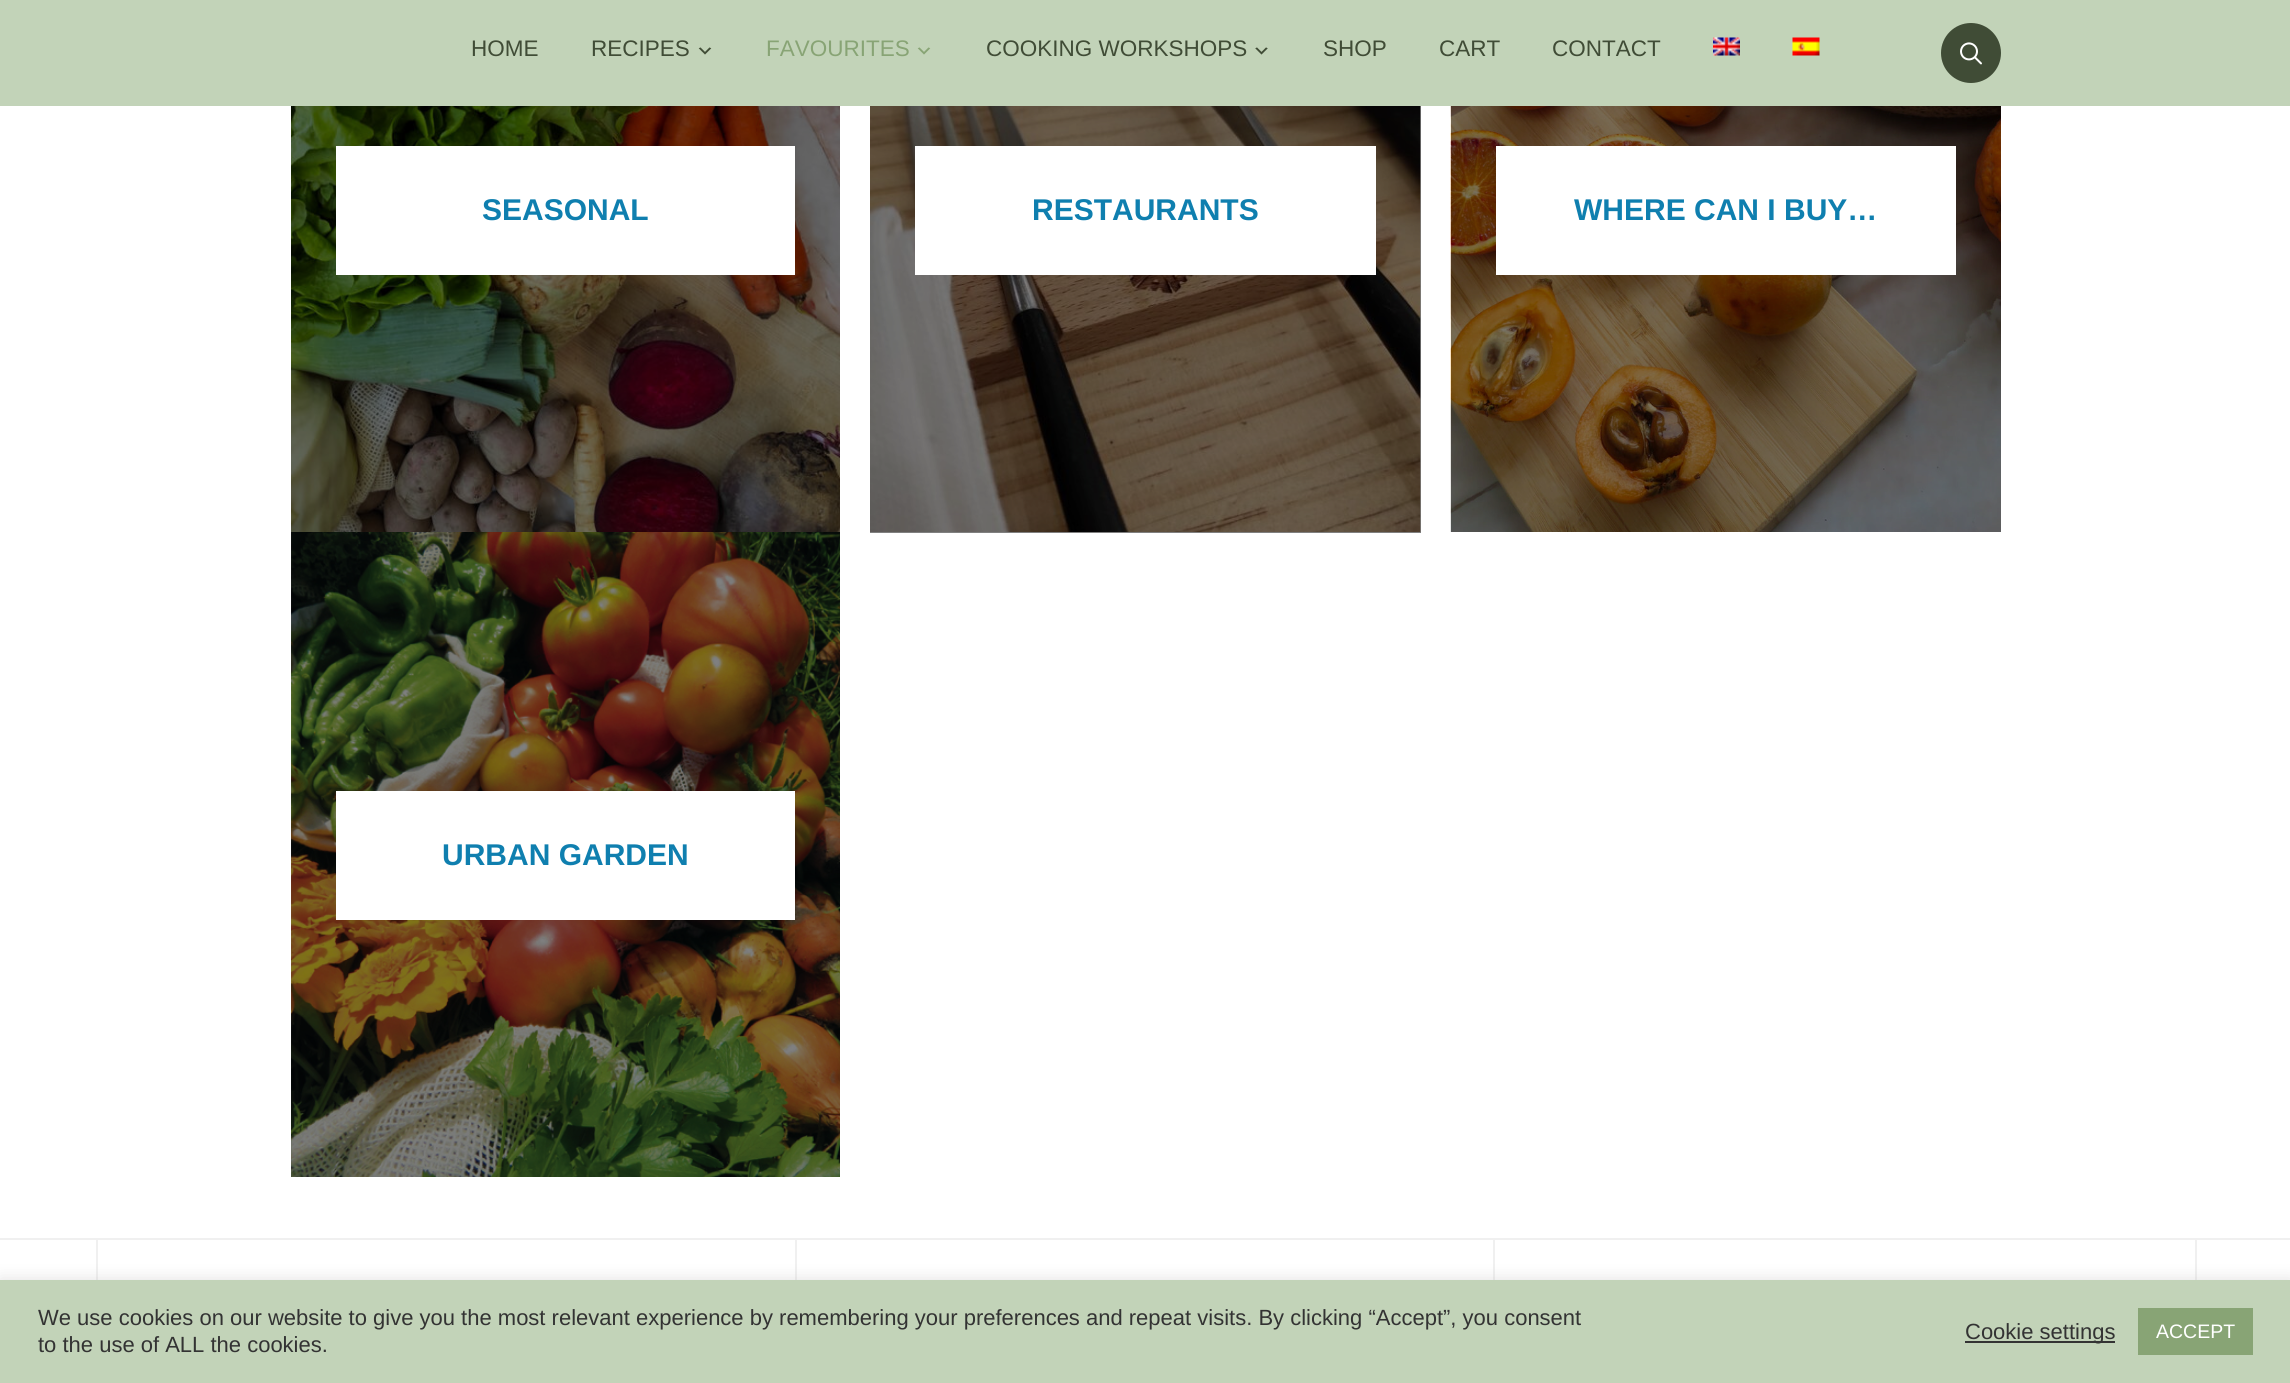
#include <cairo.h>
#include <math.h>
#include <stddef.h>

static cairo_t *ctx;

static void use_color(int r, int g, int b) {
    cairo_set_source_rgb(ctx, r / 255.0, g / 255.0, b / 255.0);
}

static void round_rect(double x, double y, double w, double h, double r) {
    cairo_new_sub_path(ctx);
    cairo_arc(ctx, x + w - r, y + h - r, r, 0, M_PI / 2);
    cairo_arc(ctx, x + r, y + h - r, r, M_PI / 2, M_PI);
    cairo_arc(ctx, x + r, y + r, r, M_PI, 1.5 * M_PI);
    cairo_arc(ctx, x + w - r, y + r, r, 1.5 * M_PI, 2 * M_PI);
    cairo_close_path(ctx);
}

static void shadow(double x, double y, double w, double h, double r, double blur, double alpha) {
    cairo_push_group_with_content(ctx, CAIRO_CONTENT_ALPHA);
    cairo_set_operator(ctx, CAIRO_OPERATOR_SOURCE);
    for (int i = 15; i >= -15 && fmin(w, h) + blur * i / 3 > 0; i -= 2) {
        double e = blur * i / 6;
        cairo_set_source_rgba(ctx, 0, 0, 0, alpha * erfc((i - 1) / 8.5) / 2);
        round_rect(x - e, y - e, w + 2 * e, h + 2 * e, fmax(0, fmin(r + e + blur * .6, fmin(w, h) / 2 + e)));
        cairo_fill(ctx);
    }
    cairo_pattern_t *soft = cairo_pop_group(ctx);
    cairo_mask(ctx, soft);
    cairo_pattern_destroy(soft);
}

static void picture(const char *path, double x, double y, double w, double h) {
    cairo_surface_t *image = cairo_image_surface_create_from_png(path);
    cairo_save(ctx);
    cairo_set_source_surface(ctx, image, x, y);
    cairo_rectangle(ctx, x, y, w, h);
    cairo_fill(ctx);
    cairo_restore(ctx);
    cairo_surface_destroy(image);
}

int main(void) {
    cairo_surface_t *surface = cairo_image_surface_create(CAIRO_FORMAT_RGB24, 2290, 1383);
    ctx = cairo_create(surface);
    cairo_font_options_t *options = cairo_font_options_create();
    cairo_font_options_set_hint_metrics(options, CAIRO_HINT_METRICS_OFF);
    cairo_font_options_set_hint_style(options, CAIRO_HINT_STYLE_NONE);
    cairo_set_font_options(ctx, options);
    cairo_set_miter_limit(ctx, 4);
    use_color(255, 255, 255);
    cairo_paint(ctx);
    use_color(128, 128, 128);
    cairo_rectangle(ctx, 870, 106, 551, 427);
    cairo_fill(ctx);
    use_color(194, 211, 184);
    cairo_rectangle(ctx, 0, 0, 2290, 106);
    cairo_fill(ctx);
    cairo_select_font_face(ctx, "Liberation Sans", CAIRO_FONT_SLANT_NORMAL, CAIRO_FONT_WEIGHT_NORMAL);
    cairo_set_font_size(ctx, 22.5);
    use_color(64, 76, 54);
    cairo_move_to(ctx, 471, 56);
    cairo_show_text(ctx, "HOME");
    cairo_move_to(ctx, 591, 56);
    cairo_show_text(ctx, "RECIPES");
    picture("img1.png", 698, 47, 14, 8);
    use_color(136, 164, 117);
    cairo_move_to(ctx, 766, 56);
    cairo_show_text(ctx, "FAVOURITES");
    picture("img2.png", 917, 47, 14, 8);
    use_color(64, 76, 54);
    cairo_move_to(ctx, 986, 56);
    cairo_show_text(ctx, "COOKING WORKSHOPS");
    picture("img3.png", 1255, 47, 13, 8);
    cairo_move_to(ctx, 1323, 56);
    cairo_show_text(ctx, "SHOP");
    cairo_move_to(ctx, 1439, 56);
    cairo_show_text(ctx, "CART");
    cairo_move_to(ctx, 1552, 56);
    cairo_show_text(ctx, "CONTACT");
    picture("img4.png", 1713, 37, 27, 19);
    picture("img5.png", 1792, 37, 28, 19);
    cairo_arc(ctx, 1971, 53, 30, 0, 2 * M_PI);
    cairo_fill(ctx);
    picture("img6.png", 1960, 42, 22, 23);
    picture("img7.png", 291, 106, 549, 426);
    picture("img10.png", 291, 532, 549, 645);
    cairo_set_source_rgba(ctx, 0, 0, 0, 0.5);
    cairo_rectangle(ctx, 291, 106, 549, 427);
    cairo_fill(ctx);
    use_color(255, 255, 255);
    cairo_rectangle(ctx, 336, 146, 459, 129);
    cairo_fill(ctx);
    cairo_select_font_face(ctx, "Liberation Sans", CAIRO_FONT_SLANT_NORMAL, CAIRO_FONT_WEIGHT_BOLD);
    cairo_set_font_size(ctx, 30);
    use_color(15, 127, 175);
    cairo_move_to(ctx, 482, 220);
    cairo_show_text(ctx, "SEASONAL");
    picture("img8.png", 870, 106, 551, 426);
    use_color(255, 255, 255);
    cairo_rectangle(ctx, 915, 146, 461, 129);
    cairo_fill(ctx);
    use_color(15, 127, 175);
    cairo_move_to(ctx, 1032, 220);
    cairo_show_text(ctx, "RESTAURANTS");
    picture("img9.png", 1450, 106, 551, 426);
    use_color(255, 255, 255);
    cairo_rectangle(ctx, 1496, 146, 460, 129);
    cairo_fill(ctx);
    use_color(15, 127, 175);
    cairo_move_to(ctx, 1574, 220);
    cairo_show_text(ctx, "WHERE CAN I BUY…");
    use_color(255, 255, 255);
    cairo_rectangle(ctx, 336, 791, 459, 129);
    cairo_fill(ctx);
    use_color(15, 127, 175);
    cairo_move_to(ctx, 442, 865);
    cairo_show_text(ctx, "URBAN GARDEN");
    use_color(240, 240, 240);
    cairo_rectangle(ctx, 0, 1238, 2290, 2);
    cairo_fill(ctx);
    cairo_rectangle(ctx, 2195, 1239, 2, 41);
    cairo_fill(ctx);
    cairo_rectangle(ctx, 96, 1239, 2, 41);
    cairo_fill(ctx);
    cairo_rectangle(ctx, 795, 1239, 2, 41);
    cairo_fill(ctx);
    cairo_rectangle(ctx, 1493, 1239, 2, 41);
    cairo_fill(ctx);
    use_color(172, 171, 171);
    shadow(0, 1278, 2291, 104, 0, 7.5, 0.3);
    use_color(194, 211, 184);
    cairo_rectangle(ctx, 0, 1280, 2290, 103);
    cairo_fill(ctx);
    cairo_select_font_face(ctx, "Liberation Sans", CAIRO_FONT_SLANT_NORMAL, CAIRO_FONT_WEIGHT_NORMAL);
    cairo_set_font_size(ctx, 22);
    use_color(51, 51, 51);
    cairo_move_to(ctx, 38, 1325);
    cairo_show_text(ctx, "We use cookies on our website to give you the most relevant experience by remembering your preferences and repeat visits. By clicking “Accept”, you consent");
    cairo_move_to(ctx, 38, 1352);
    cairo_show_text(ctx, "to the use of ALL the cookies.");
    cairo_rectangle(ctx, 1965, 1341, 150, 2);
    cairo_fill(ctx);
    cairo_move_to(ctx, 1965, 1339);
    cairo_show_text(ctx, "Cookie settings");
    use_color(136, 164, 117);
    cairo_rectangle(ctx, 2138, 1308, 115, 47);
    cairo_fill(ctx);
    cairo_set_font_size(ctx, 19.5);
    use_color(255, 255, 255);
    cairo_move_to(ctx, 2156, 1338);
    cairo_show_text(ctx, "ACCEPT");
    cairo_surface_write_to_png(surface, "result.png");
    cairo_font_options_destroy(options);
    cairo_destroy(ctx);
    cairo_surface_destroy(surface);
    return 0;
}
